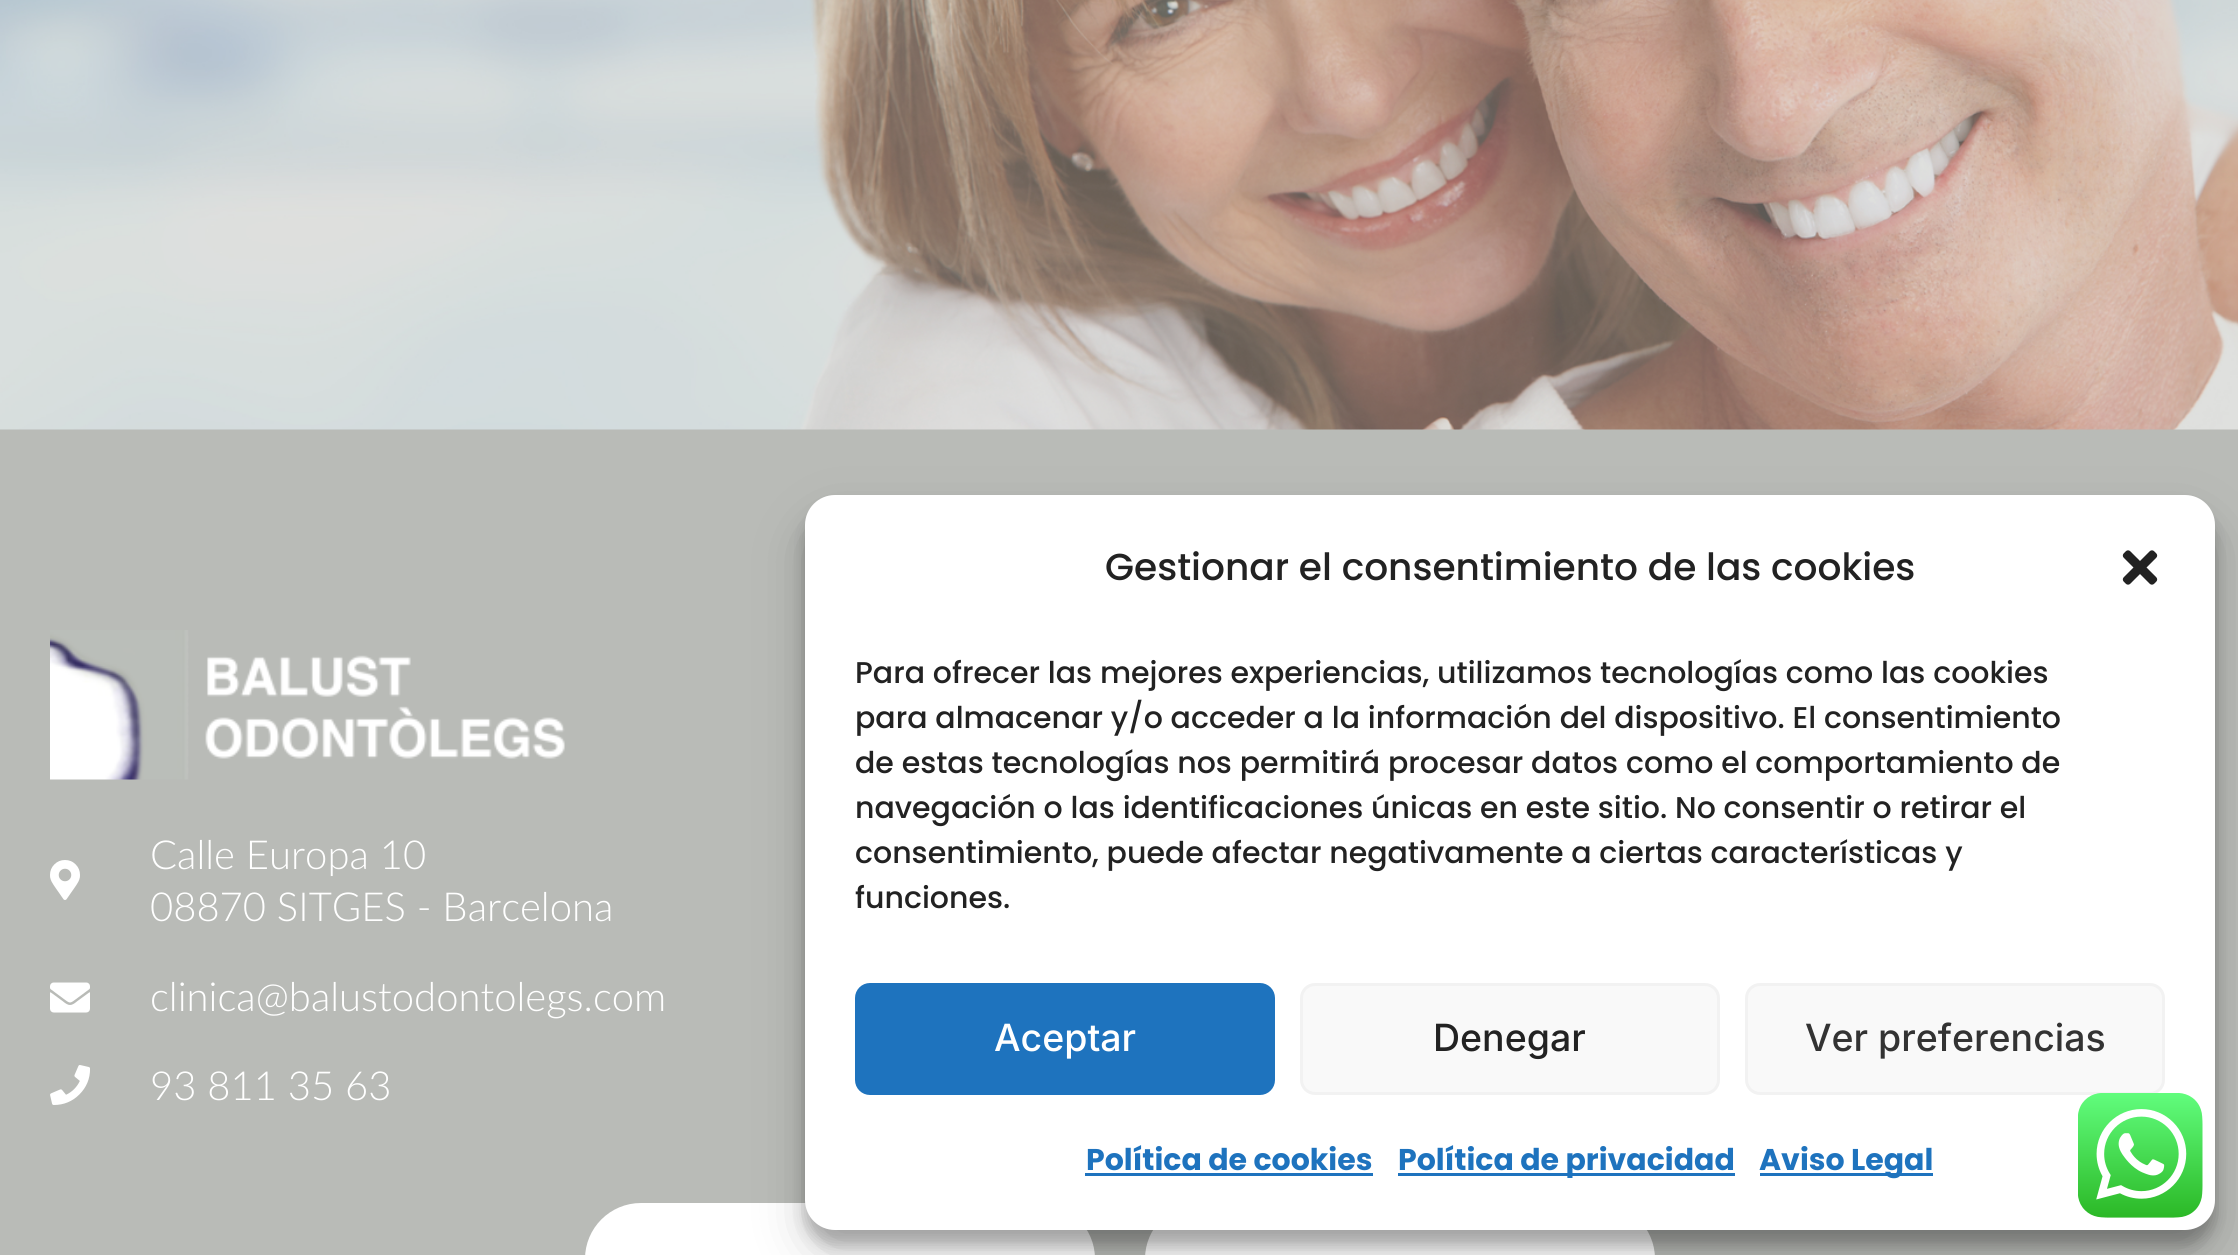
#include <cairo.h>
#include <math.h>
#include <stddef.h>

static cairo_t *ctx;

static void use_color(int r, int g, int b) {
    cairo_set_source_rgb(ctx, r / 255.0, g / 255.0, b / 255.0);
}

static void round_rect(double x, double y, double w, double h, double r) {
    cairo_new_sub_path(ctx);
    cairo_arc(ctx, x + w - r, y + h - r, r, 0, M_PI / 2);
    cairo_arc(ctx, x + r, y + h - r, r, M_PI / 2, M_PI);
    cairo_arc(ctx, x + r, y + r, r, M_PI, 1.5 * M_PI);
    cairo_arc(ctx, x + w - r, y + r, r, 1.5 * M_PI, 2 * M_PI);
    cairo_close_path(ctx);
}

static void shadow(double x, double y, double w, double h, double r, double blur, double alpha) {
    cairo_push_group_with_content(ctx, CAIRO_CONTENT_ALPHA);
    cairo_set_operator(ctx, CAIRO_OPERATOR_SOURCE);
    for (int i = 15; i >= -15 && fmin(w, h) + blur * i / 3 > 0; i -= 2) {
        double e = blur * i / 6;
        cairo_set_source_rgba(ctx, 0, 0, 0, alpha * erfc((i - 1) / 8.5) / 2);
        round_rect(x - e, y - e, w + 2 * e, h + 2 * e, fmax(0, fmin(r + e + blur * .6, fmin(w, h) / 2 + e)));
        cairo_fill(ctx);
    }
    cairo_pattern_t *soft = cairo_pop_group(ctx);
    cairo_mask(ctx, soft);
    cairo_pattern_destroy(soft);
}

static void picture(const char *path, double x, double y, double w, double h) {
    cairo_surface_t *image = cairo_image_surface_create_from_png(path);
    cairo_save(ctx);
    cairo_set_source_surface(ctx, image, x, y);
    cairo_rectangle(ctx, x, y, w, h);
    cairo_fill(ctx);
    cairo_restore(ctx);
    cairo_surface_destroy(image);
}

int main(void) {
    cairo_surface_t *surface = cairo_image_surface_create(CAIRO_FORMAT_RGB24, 2238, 1255);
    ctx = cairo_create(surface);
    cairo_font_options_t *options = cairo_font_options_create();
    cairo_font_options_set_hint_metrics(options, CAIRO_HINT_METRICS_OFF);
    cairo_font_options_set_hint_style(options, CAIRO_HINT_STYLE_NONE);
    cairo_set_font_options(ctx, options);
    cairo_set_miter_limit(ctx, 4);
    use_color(185, 187, 183);
    cairo_paint(ctx);
    picture("img1.png", 0, 0, 2238, 430);
    picture("img2.png", 50, 630, 515, 150);
    picture("img3.png", 50, 860, 30, 40);
    cairo_select_font_face(ctx, "Lato Light", CAIRO_FONT_SLANT_NORMAL, CAIRO_FONT_WEIGHT_NORMAL);
    cairo_set_font_size(ctx, 40);
    use_color(255, 255, 255);
    cairo_move_to(ctx, 150, 869);
    cairo_show_text(ctx, "Calle Europa 10");
    cairo_move_to(ctx, 150, 921);
    cairo_show_text(ctx, "08870 SITGES - Barcelona");
    picture("img4.png", 50, 982, 40, 31);
    cairo_move_to(ctx, 150, 1011);
    cairo_show_text(ctx, "clinica@balustodontolegs.com");
    picture("img5.png", 50, 1065, 40, 40);
    cairo_move_to(ctx, 150, 1100);
    cairo_show_text(ctx, "93 811 35 63");
    round_rect(585, 1203, 510, 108, 56);
    cairo_fill(ctx);
    round_rect(1145, 1203, 510, 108, 56);
    cairo_fill(ctx);
    use_color(0, 0, 0);
    shadow(805, 510, 1410, 735, 30, 7.5, 0.23);
    shadow(805, 520, 1410, 735, 30, 25, 0.19);
    use_color(255, 255, 255);
    round_rect(805, 495, 1410, 735, 30);
    cairo_fill(ctx);
    cairo_select_font_face(ctx, "Poppins Medium", CAIRO_FONT_SLANT_NORMAL, CAIRO_FONT_WEIGHT_NORMAL);
    cairo_set_font_size(ctx, 37.5);
    use_color(34, 34, 34);
    cairo_move_to(ctx, 1105, 580);
    cairo_show_text(ctx, "Gestionar el consentimiento de las cookies");
    picture("img6.png", 2122, 550, 36, 35);
    cairo_set_font_size(ctx, 30);
    cairo_move_to(ctx, 855, 683);
    cairo_show_text(ctx, "Para ofrecer las mejores experiencias, utilizamos tecnologías como las cookies");
    cairo_move_to(ctx, 855, 728);
    cairo_show_text(ctx, "para almacenar y/o acceder a la información del dispositivo. El consentimiento");
    cairo_move_to(ctx, 855, 773);
    cairo_show_text(ctx, "de estas tecnologías nos permitirá procesar datos como el comportamiento de");
    cairo_move_to(ctx, 855, 818);
    cairo_show_text(ctx, "navegación o las identificaciones únicas en este sitio. No consentir o retirar el");
    cairo_move_to(ctx, 855, 863);
    cairo_show_text(ctx, "consentimiento, puede afectar negativamente a ciertas características y");
    cairo_move_to(ctx, 855, 908);
    cairo_show_text(ctx, "funciones.");
    use_color(30, 115, 190);
    round_rect(856.5, 984.5, 417, 109, 13.5);
    cairo_fill_preserve(ctx);
    cairo_set_line_width(ctx, 3);
    cairo_stroke(ctx);
    cairo_select_font_face(ctx, "Inter Medium", CAIRO_FONT_SLANT_NORMAL, CAIRO_FONT_WEIGHT_NORMAL);
    cairo_set_font_size(ctx, 37.5);
    use_color(255, 255, 255);
    cairo_move_to(ctx, 994, 1051);
    cairo_show_text(ctx, "Aceptar");
    use_color(249, 249, 249);
    round_rect(1301.5, 984.5, 417, 109, 13.5);
    cairo_fill_preserve(ctx);
    use_color(242, 242, 242);
    cairo_stroke(ctx);
    use_color(34, 34, 34);
    cairo_move_to(ctx, 1433, 1051);
    cairo_show_text(ctx, "Denegar");
    use_color(249, 249, 249);
    round_rect(1746.5, 984.5, 417, 109, 13.5);
    cairo_fill_preserve(ctx);
    use_color(242, 242, 242);
    cairo_stroke(ctx);
    use_color(51, 51, 51);
    cairo_move_to(ctx, 1805, 1051);
    cairo_show_text(ctx, "Ver preferencias");
    cairo_select_font_face(ctx, "Poppins", CAIRO_FONT_SLANT_NORMAL, CAIRO_FONT_WEIGHT_BOLD);
    cairo_set_font_size(ctx, 30);
    use_color(30, 115, 190);
    cairo_move_to(ctx, 1086, 1170);
    cairo_show_text(ctx, "Política de cookies");
    cairo_rectangle(ctx, 1085, 1173, 288, 3);
    cairo_fill(ctx);
    cairo_rectangle(ctx, 1398, 1173, 337, 3);
    cairo_fill(ctx);
    cairo_move_to(ctx, 1398, 1170);
    cairo_show_text(ctx, "Política de privacidad");
    cairo_rectangle(ctx, 1760, 1173, 173, 3);
    cairo_fill(ctx);
    cairo_move_to(ctx, 1759, 1170);
    cairo_show_text(ctx, "Aviso Legal");
    picture("img7.png", 2078, 1093, 125, 125);
    cairo_surface_write_to_png(surface, "result.png");
    cairo_font_options_destroy(options);
    cairo_destroy(ctx);
    cairo_surface_destroy(surface);
    return 0;
}
